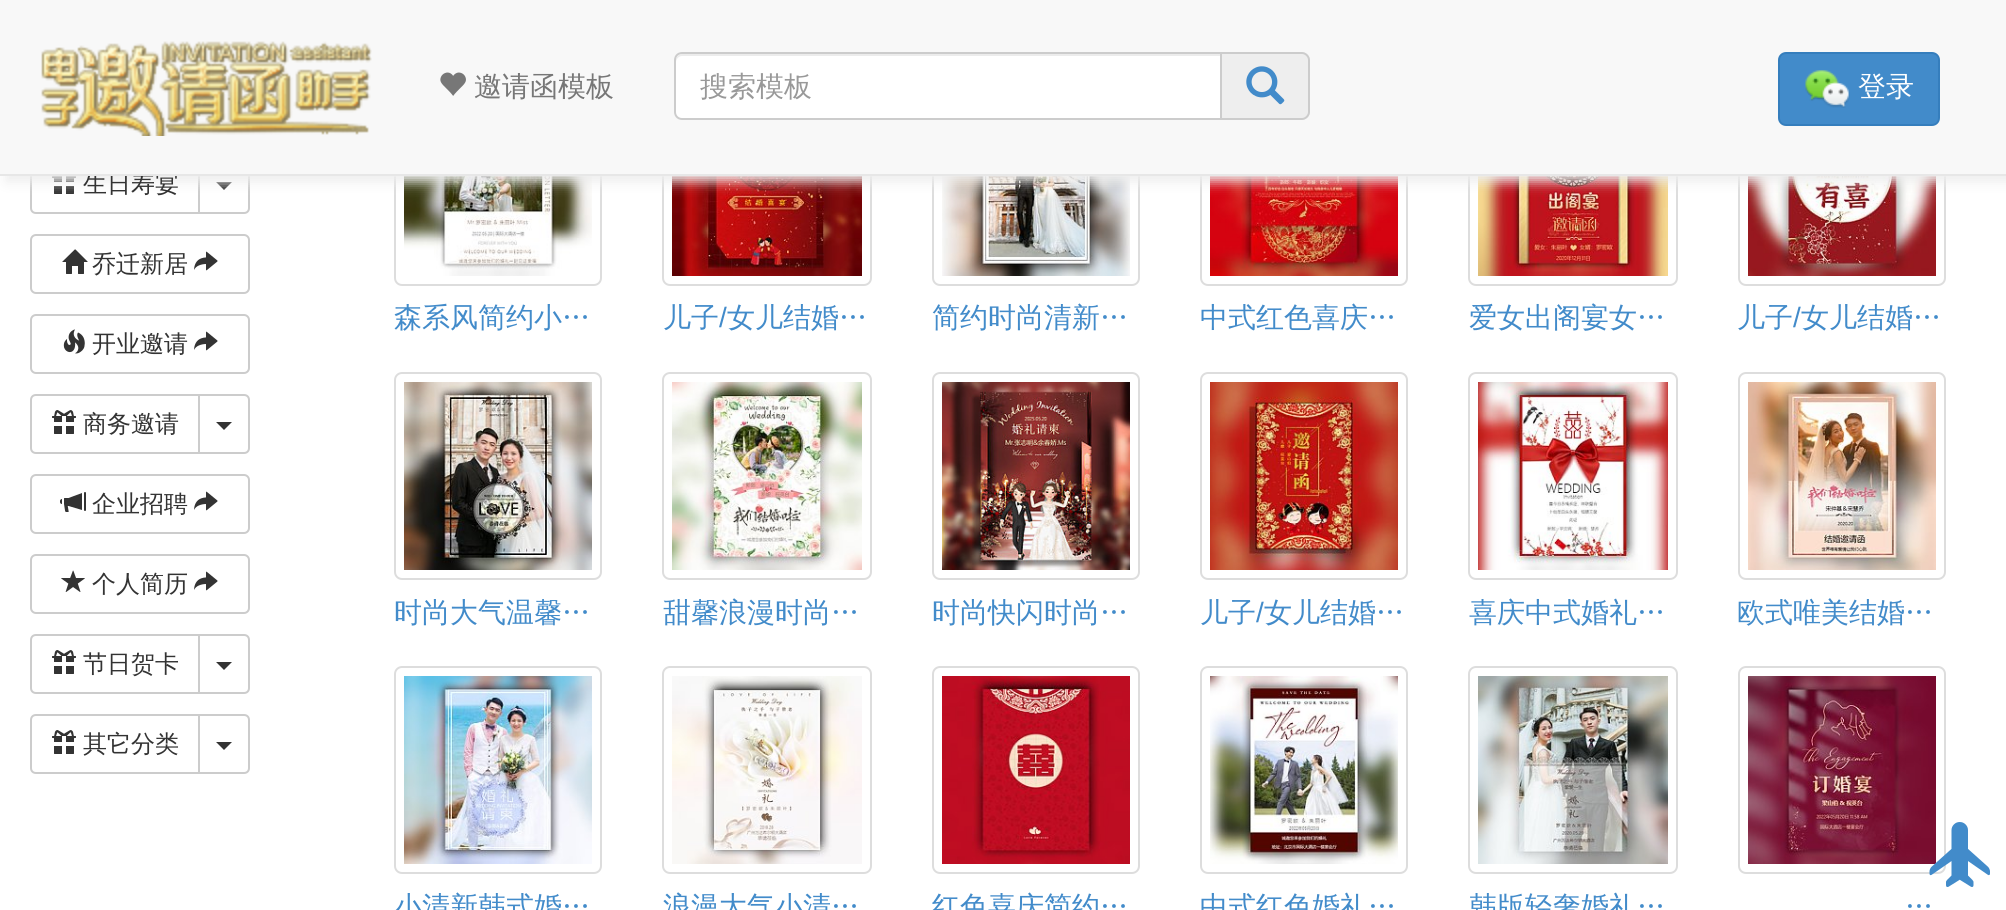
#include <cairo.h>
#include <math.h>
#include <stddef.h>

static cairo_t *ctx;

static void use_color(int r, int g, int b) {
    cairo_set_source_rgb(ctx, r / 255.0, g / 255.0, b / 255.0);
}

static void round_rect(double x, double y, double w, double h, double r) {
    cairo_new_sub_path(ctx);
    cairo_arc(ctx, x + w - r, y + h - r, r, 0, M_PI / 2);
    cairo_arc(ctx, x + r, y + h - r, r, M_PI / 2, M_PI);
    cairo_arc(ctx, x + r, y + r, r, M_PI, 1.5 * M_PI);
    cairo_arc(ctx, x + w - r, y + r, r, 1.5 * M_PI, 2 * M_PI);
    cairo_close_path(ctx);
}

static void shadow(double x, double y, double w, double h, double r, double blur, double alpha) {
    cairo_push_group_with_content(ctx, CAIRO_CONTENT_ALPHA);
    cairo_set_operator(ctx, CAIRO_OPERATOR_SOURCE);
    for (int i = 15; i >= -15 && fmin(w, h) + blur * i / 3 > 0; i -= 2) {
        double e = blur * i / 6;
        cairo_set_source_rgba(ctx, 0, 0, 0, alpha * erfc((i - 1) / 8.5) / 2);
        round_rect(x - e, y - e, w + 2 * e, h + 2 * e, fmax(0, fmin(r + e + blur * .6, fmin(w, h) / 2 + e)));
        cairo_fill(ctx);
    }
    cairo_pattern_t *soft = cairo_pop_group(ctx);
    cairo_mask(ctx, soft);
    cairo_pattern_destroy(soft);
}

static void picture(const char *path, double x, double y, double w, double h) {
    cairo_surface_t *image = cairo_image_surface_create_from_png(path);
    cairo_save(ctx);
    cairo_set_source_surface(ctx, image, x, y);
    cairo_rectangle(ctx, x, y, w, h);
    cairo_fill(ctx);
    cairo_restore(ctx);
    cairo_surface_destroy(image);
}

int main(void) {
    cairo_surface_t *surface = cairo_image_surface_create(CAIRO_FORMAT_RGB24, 2006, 910);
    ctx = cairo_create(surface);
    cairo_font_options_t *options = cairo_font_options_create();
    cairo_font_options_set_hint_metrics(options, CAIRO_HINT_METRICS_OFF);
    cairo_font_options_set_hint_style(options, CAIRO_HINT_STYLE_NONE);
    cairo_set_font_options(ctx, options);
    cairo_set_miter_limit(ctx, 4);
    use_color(255, 255, 255);
    cairo_paint(ctx);
    cairo_new_path(ctx);
    cairo_move_to(ctx, 36, 155);
    cairo_line_to(ctx, 199, 155);
    cairo_line_to(ctx, 199, 213);
    cairo_line_to(ctx, 36, 213);
    cairo_curve_to(ctx, 33, 213, 31, 211, 31, 208);
    cairo_line_to(ctx, 31, 160);
    cairo_curve_to(ctx, 31, 157, 33, 155, 36, 155);
    cairo_close_path(ctx);
    use_color(204, 204, 204);
    cairo_stroke(ctx);
    picture("img5.png", 52, 176, 24, 18);
    use_color(255, 255, 255);
    cairo_new_path(ctx);
    cairo_move_to(ctx, 199, 155);
    cairo_line_to(ctx, 244, 155);
    cairo_curve_to(ctx, 247, 155, 249, 157, 249, 160);
    cairo_line_to(ctx, 249, 208);
    cairo_curve_to(ctx, 249, 211, 247, 213, 244, 213);
    cairo_line_to(ctx, 199, 213);
    cairo_close_path(ctx);
    cairo_fill_preserve(ctx);
    use_color(204, 204, 204);
    cairo_stroke(ctx);
    use_color(51, 51, 51);
    cairo_new_path(ctx);
    cairo_move_to(ctx, 216, 182);
    cairo_line_to(ctx, 232, 182);
    cairo_line_to(ctx, 224, 190);
    cairo_close_path(ctx);
    cairo_fill(ctx);
    round_rect(395, 77, 206, 208, 7);
    use_color(221, 221, 221);
    cairo_stroke(ctx);
    picture("img12.png", 404, 176, 188, 100);
    round_rect(663, 77, 208, 208, 7);
    cairo_stroke(ctx);
    picture("img13.png", 672, 176, 190, 100);
    round_rect(933, 77, 206, 208, 7);
    cairo_stroke(ctx);
    picture("img14.png", 942, 176, 188, 100);
    round_rect(1201, 77, 206, 208, 7);
    cairo_stroke(ctx);
    picture("img15.png", 1210, 176, 188, 100);
    round_rect(1469, 77, 208, 208, 7);
    cairo_stroke(ctx);
    picture("img16.png", 1478, 176, 190, 100);
    round_rect(1739, 77, 206, 208, 7);
    cairo_stroke(ctx);
    picture("img17.png", 1748, 176, 188, 100);
    use_color(238, 238, 238);
    shadow(6, 6, 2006, 176, 0, 6, 1);
    cairo_select_font_face(ctx, "WenQuanYi Zen Hei Medium", CAIRO_FONT_SLANT_NORMAL, CAIRO_FONT_WEIGHT_NORMAL);
    cairo_set_font_size(ctx, 24);
    use_color(51, 51, 51);
    cairo_move_to(ctx, 83, 192);
    cairo_show_text(ctx, "生日寿宴");
    use_color(248, 248, 248);
    cairo_rectangle(ctx, 0, 0, 2006, 174);
    cairo_fill(ctx);
    use_color(231, 231, 231);
    cairo_rectangle(ctx, 0, 174, 2006, 2);
    cairo_fill(ctx);
    picture("img1.png", 41, 41, 331, 95);
    picture("img2.png", 440, 72, 26, 24);
    cairo_set_font_size(ctx, 28);
    use_color(119, 119, 119);
    cairo_move_to(ctx, 474, 96);
    cairo_show_text(ctx, "邀请函模板");
    use_color(255, 255, 255);
    cairo_new_path(ctx);
    cairo_move_to(ctx, 682, 52);
    cairo_line_to(ctx, 1222, 52);
    cairo_line_to(ctx, 1222, 120);
    cairo_line_to(ctx, 682, 120);
    cairo_curve_to(ctx, 677.5, 120, 674, 116.5, 674, 112);
    cairo_line_to(ctx, 674, 60);
    cairo_curve_to(ctx, 674, 55.5, 677.5, 52, 682, 52);
    cairo_close_path(ctx);
    cairo_fill(ctx);
    use_color(236, 236, 236);
    cairo_new_path(ctx);
    cairo_move_to(ctx, 682, 56);
    cairo_line_to(ctx, 1220, 56);
    cairo_line_to(ctx, 1220, 54);
    cairo_line_to(ctx, 682, 54);
    cairo_curve_to(ctx, 679, 54, 676, 57, 676, 60);
    cairo_line_to(ctx, 676, 62);
    cairo_curve_to(ctx, 676, 59, 679, 56, 682, 56);
    cairo_close_path(ctx);
    cairo_fill(ctx);
    cairo_new_path(ctx);
    cairo_move_to(ctx, 682, 53);
    cairo_line_to(ctx, 1221, 53);
    cairo_line_to(ctx, 1221, 119);
    cairo_line_to(ctx, 682, 119);
    cairo_curve_to(ctx, 678, 119, 675, 116, 675, 112);
    cairo_line_to(ctx, 675, 60);
    cairo_curve_to(ctx, 675, 56, 678, 53, 682, 53);
    cairo_close_path(ctx);
    use_color(204, 204, 204);
    cairo_stroke(ctx);
    use_color(153, 153, 153);
    cairo_move_to(ctx, 700, 96);
    cairo_show_text(ctx, "搜索模板");
    use_color(238, 238, 238);
    cairo_new_path(ctx);
    cairo_move_to(ctx, 1222, 52);
    cairo_line_to(ctx, 1302, 52);
    cairo_curve_to(ctx, 1306.5, 52, 1310, 55.5, 1310, 60);
    cairo_line_to(ctx, 1310, 112);
    cairo_curve_to(ctx, 1310, 116.5, 1306.5, 120, 1302, 120);
    cairo_line_to(ctx, 1222, 120);
    cairo_close_path(ctx);
    cairo_fill(ctx);
    use_color(204, 204, 204);
    cairo_set_fill_rule(ctx, CAIRO_FILL_RULE_EVEN_ODD);
    cairo_new_path(ctx);
    cairo_move_to(ctx, 1222, 52);
    cairo_line_to(ctx, 1302, 52);
    cairo_curve_to(ctx, 1306, 52, 1310, 56, 1310, 60);
    cairo_line_to(ctx, 1310, 112);
    cairo_curve_to(ctx, 1310, 116, 1306, 120, 1302, 120);
    cairo_line_to(ctx, 1222, 120);
    cairo_close_path(ctx);
    cairo_move_to(ctx, 1222, 54);
    cairo_line_to(ctx, 1302, 54);
    cairo_curve_to(ctx, 1305, 54, 1308, 57, 1308, 60);
    cairo_line_to(ctx, 1308, 112);
    cairo_curve_to(ctx, 1308, 115, 1305, 118, 1302, 118);
    cairo_line_to(ctx, 1222, 118);
    cairo_close_path(ctx);
    cairo_fill(ctx);
    picture("img3.png", 1246, 66, 39, 39);
    use_color(66, 139, 202);
    round_rect(1779, 53, 160, 72, 7);
    cairo_fill_preserve(ctx);
    use_color(53, 126, 189);
    cairo_stroke(ctx);
    picture("img4.png", 1805, 70, 45, 38);
    use_color(255, 255, 255);
    cairo_move_to(ctx, 1858, 96);
    cairo_show_text(ctx, "登录");
    round_rect(31, 235, 218, 58, 5);
    use_color(204, 204, 204);
    cairo_stroke(ctx);
    picture("img6.png", 62, 249, 26, 25);
    cairo_set_font_size(ctx, 24);
    use_color(51, 51, 51);
    cairo_move_to(ctx, 92, 272);
    cairo_show_text(ctx, "乔迁新居");
    picture("img7.png", 194, 251, 24, 20);
    round_rect(31, 315, 218, 58, 5);
    use_color(204, 204, 204);
    cairo_stroke(ctx);
    picture("img8.png", 63, 329, 22, 25);
    use_color(51, 51, 51);
    cairo_move_to(ctx, 92, 352);
    cairo_show_text(ctx, "开业邀请");
    picture("img7.png", 194, 331, 24, 20);
    cairo_new_path(ctx);
    cairo_move_to(ctx, 36, 395);
    cairo_line_to(ctx, 199, 395);
    cairo_line_to(ctx, 199, 453);
    cairo_line_to(ctx, 36, 453);
    cairo_curve_to(ctx, 33, 453, 31, 451, 31, 448);
    cairo_line_to(ctx, 31, 400);
    cairo_curve_to(ctx, 31, 397, 33, 395, 36, 395);
    cairo_close_path(ctx);
    use_color(204, 204, 204);
    cairo_stroke(ctx);
    picture("img9.png", 52, 410, 24, 24);
    use_color(51, 51, 51);
    cairo_move_to(ctx, 83, 432);
    cairo_show_text(ctx, "商务邀请");
    use_color(255, 255, 255);
    cairo_new_path(ctx);
    cairo_move_to(ctx, 199, 395);
    cairo_line_to(ctx, 244, 395);
    cairo_curve_to(ctx, 247, 395, 249, 397, 249, 400);
    cairo_line_to(ctx, 249, 448);
    cairo_curve_to(ctx, 249, 451, 247, 453, 244, 453);
    cairo_line_to(ctx, 199, 453);
    cairo_close_path(ctx);
    cairo_fill_preserve(ctx);
    use_color(204, 204, 204);
    cairo_stroke(ctx);
    use_color(51, 51, 51);
    cairo_set_fill_rule(ctx, CAIRO_FILL_RULE_WINDING);
    cairo_new_path(ctx);
    cairo_move_to(ctx, 216, 422);
    cairo_line_to(ctx, 232, 422);
    cairo_line_to(ctx, 224, 430);
    cairo_close_path(ctx);
    cairo_fill(ctx);
    round_rect(31, 475, 218, 58, 5);
    use_color(204, 204, 204);
    cairo_stroke(ctx);
    picture("img10.png", 60, 492, 26, 20);
    use_color(51, 51, 51);
    cairo_move_to(ctx, 92, 512);
    cairo_show_text(ctx, "企业招聘");
    picture("img7.png", 194, 491, 24, 20);
    round_rect(31, 555, 218, 58, 5);
    use_color(204, 204, 204);
    cairo_stroke(ctx);
    picture("img11.png", 61, 570, 24, 22);
    use_color(51, 51, 51);
    cairo_move_to(ctx, 92, 592);
    cairo_show_text(ctx, "个人简历");
    picture("img7.png", 194, 571, 24, 20);
    cairo_new_path(ctx);
    cairo_move_to(ctx, 36, 635);
    cairo_line_to(ctx, 199, 635);
    cairo_line_to(ctx, 199, 693);
    cairo_line_to(ctx, 36, 693);
    cairo_curve_to(ctx, 33, 693, 31, 691, 31, 688);
    cairo_line_to(ctx, 31, 640);
    cairo_curve_to(ctx, 31, 637, 33, 635, 36, 635);
    cairo_close_path(ctx);
    use_color(204, 204, 204);
    cairo_stroke(ctx);
    picture("img9.png", 52, 650, 24, 24);
    use_color(51, 51, 51);
    cairo_move_to(ctx, 83, 672);
    cairo_show_text(ctx, "节日贺卡");
    use_color(255, 255, 255);
    cairo_new_path(ctx);
    cairo_move_to(ctx, 199, 635);
    cairo_line_to(ctx, 244, 635);
    cairo_curve_to(ctx, 247, 635, 249, 637, 249, 640);
    cairo_line_to(ctx, 249, 688);
    cairo_curve_to(ctx, 249, 691, 247, 693, 244, 693);
    cairo_line_to(ctx, 199, 693);
    cairo_close_path(ctx);
    cairo_fill_preserve(ctx);
    use_color(204, 204, 204);
    cairo_stroke(ctx);
    use_color(51, 51, 51);
    cairo_new_path(ctx);
    cairo_move_to(ctx, 216, 662);
    cairo_line_to(ctx, 232, 662);
    cairo_line_to(ctx, 224, 670);
    cairo_close_path(ctx);
    cairo_fill(ctx);
    cairo_new_path(ctx);
    cairo_move_to(ctx, 36, 715);
    cairo_line_to(ctx, 199, 715);
    cairo_line_to(ctx, 199, 773);
    cairo_line_to(ctx, 36, 773);
    cairo_curve_to(ctx, 33, 773, 31, 771, 31, 768);
    cairo_line_to(ctx, 31, 720);
    cairo_curve_to(ctx, 31, 717, 33, 715, 36, 715);
    cairo_close_path(ctx);
    use_color(204, 204, 204);
    cairo_stroke(ctx);
    picture("img9.png", 52, 730, 24, 24);
    use_color(51, 51, 51);
    cairo_move_to(ctx, 83, 752);
    cairo_show_text(ctx, "其它分类");
    use_color(255, 255, 255);
    cairo_new_path(ctx);
    cairo_move_to(ctx, 199, 715);
    cairo_line_to(ctx, 244, 715);
    cairo_curve_to(ctx, 247, 715, 249, 717, 249, 720);
    cairo_line_to(ctx, 249, 768);
    cairo_curve_to(ctx, 249, 771, 247, 773, 244, 773);
    cairo_line_to(ctx, 199, 773);
    cairo_close_path(ctx);
    cairo_fill_preserve(ctx);
    use_color(204, 204, 204);
    cairo_stroke(ctx);
    use_color(51, 51, 51);
    cairo_new_path(ctx);
    cairo_move_to(ctx, 216, 742);
    cairo_line_to(ctx, 232, 742);
    cairo_line_to(ctx, 224, 750);
    cairo_close_path(ctx);
    cairo_fill(ctx);
    cairo_set_font_size(ctx, 28);
    use_color(66, 139, 202);
    cairo_move_to(ctx, 394, 327);
    cairo_show_text(ctx, "森系风简约小…");
    cairo_move_to(ctx, 663, 327);
    cairo_show_text(ctx, "儿子");
    cairo_select_font_face(ctx, "Liberation Sans", CAIRO_FONT_SLANT_NORMAL, CAIRO_FONT_WEIGHT_NORMAL);
    cairo_move_to(ctx, 719, 327);
    cairo_show_text(ctx, "/");
    cairo_select_font_face(ctx, "WenQuanYi Zen Hei Medium", CAIRO_FONT_SLANT_NORMAL, CAIRO_FONT_WEIGHT_NORMAL);
    cairo_move_to(ctx, 727, 327);
    cairo_show_text(ctx, "女儿结婚…");
    cairo_move_to(ctx, 932, 327);
    cairo_show_text(ctx, "简约时尚清新…");
    cairo_move_to(ctx, 1200, 327);
    cairo_show_text(ctx, "中式红色喜庆…");
    cairo_move_to(ctx, 1469, 327);
    cairo_show_text(ctx, "爱女出阁宴女…");
    cairo_move_to(ctx, 1737, 327);
    cairo_show_text(ctx, "儿子");
    cairo_select_font_face(ctx, "Liberation Sans", CAIRO_FONT_SLANT_NORMAL, CAIRO_FONT_WEIGHT_NORMAL);
    cairo_move_to(ctx, 1793, 327);
    cairo_show_text(ctx, "/");
    cairo_select_font_face(ctx, "WenQuanYi Zen Hei Medium", CAIRO_FONT_SLANT_NORMAL, CAIRO_FONT_WEIGHT_NORMAL);
    cairo_move_to(ctx, 1801, 327);
    cairo_show_text(ctx, "女儿结婚…");
    round_rect(395, 373, 206, 206, 7);
    use_color(221, 221, 221);
    cairo_stroke(ctx);
    picture("img18.png", 404, 382, 188, 188);
    use_color(66, 139, 202);
    cairo_move_to(ctx, 394, 622);
    cairo_show_text(ctx, "时尚大气温馨…");
    round_rect(663, 373, 208, 206, 7);
    use_color(221, 221, 221);
    cairo_stroke(ctx);
    picture("img19.png", 672, 382, 190, 188);
    use_color(66, 139, 202);
    cairo_move_to(ctx, 663, 622);
    cairo_show_text(ctx, "甜馨浪漫时尚…");
    round_rect(933, 373, 206, 206, 7);
    use_color(221, 221, 221);
    cairo_stroke(ctx);
    picture("img20.png", 942, 382, 188, 188);
    use_color(66, 139, 202);
    cairo_move_to(ctx, 932, 622);
    cairo_show_text(ctx, "时尚快闪时尚…");
    round_rect(1201, 373, 206, 206, 7);
    use_color(221, 221, 221);
    cairo_stroke(ctx);
    picture("img21.png", 1210, 382, 188, 188);
    use_color(66, 139, 202);
    cairo_move_to(ctx, 1200, 622);
    cairo_show_text(ctx, "儿子");
    cairo_select_font_face(ctx, "Liberation Sans", CAIRO_FONT_SLANT_NORMAL, CAIRO_FONT_WEIGHT_NORMAL);
    cairo_move_to(ctx, 1256, 622);
    cairo_show_text(ctx, "/");
    cairo_select_font_face(ctx, "WenQuanYi Zen Hei Medium", CAIRO_FONT_SLANT_NORMAL, CAIRO_FONT_WEIGHT_NORMAL);
    cairo_move_to(ctx, 1264, 622);
    cairo_show_text(ctx, "女儿结婚…");
    round_rect(1469, 373, 208, 206, 7);
    use_color(221, 221, 221);
    cairo_stroke(ctx);
    picture("img22.png", 1478, 382, 190, 188);
    use_color(66, 139, 202);
    cairo_move_to(ctx, 1469, 622);
    cairo_show_text(ctx, "喜庆中式婚礼…");
    round_rect(1739, 373, 206, 206, 7);
    use_color(221, 221, 221);
    cairo_stroke(ctx);
    picture("img23.png", 1748, 382, 188, 188);
    use_color(66, 139, 202);
    cairo_move_to(ctx, 1737, 622);
    cairo_show_text(ctx, "欧式唯美结婚…");
    round_rect(395, 667, 206, 206, 7);
    use_color(221, 221, 221);
    cairo_stroke(ctx);
    picture("img24.png", 404, 676, 188, 188);
    use_color(66, 139, 202);
    cairo_move_to(ctx, 394, 916);
    cairo_show_text(ctx, "小清新韩式婚…");
    round_rect(663, 667, 208, 206, 7);
    use_color(221, 221, 221);
    cairo_stroke(ctx);
    picture("img25.png", 672, 676, 190, 188);
    use_color(66, 139, 202);
    cairo_move_to(ctx, 663, 916);
    cairo_show_text(ctx, "浪漫大气小清…");
    round_rect(933, 667, 206, 206, 7);
    use_color(221, 221, 221);
    cairo_stroke(ctx);
    picture("img26.png", 942, 676, 188, 188);
    use_color(66, 139, 202);
    cairo_move_to(ctx, 932, 916);
    cairo_show_text(ctx, "红色喜庆简约…");
    round_rect(1201, 667, 206, 206, 7);
    use_color(221, 221, 221);
    cairo_stroke(ctx);
    picture("img27.png", 1210, 676, 188, 188);
    use_color(66, 139, 202);
    cairo_move_to(ctx, 1200, 916);
    cairo_show_text(ctx, "中式红色婚礼…");
    round_rect(1469, 667, 208, 206, 7);
    use_color(221, 221, 221);
    cairo_stroke(ctx);
    picture("img28.png", 1478, 676, 190, 188);
    use_color(66, 139, 202);
    cairo_move_to(ctx, 1469, 916);
    cairo_show_text(ctx, "韩版轻奢婚礼…");
    round_rect(1739, 667, 206, 206, 7);
    use_color(221, 221, 221);
    cairo_stroke(ctx);
    picture("img29.png", 1748, 676, 188, 188);
    use_color(66, 139, 202);
    cairo_move_to(ctx, 1905, 916);
    cairo_show_text(ctx, "…");
    picture("img30.png", 1929, 822, 61, 65);
    cairo_surface_write_to_png(surface, "result.png");
    cairo_font_options_destroy(options);
    cairo_destroy(ctx);
    cairo_surface_destroy(surface);
    return 0;
}
